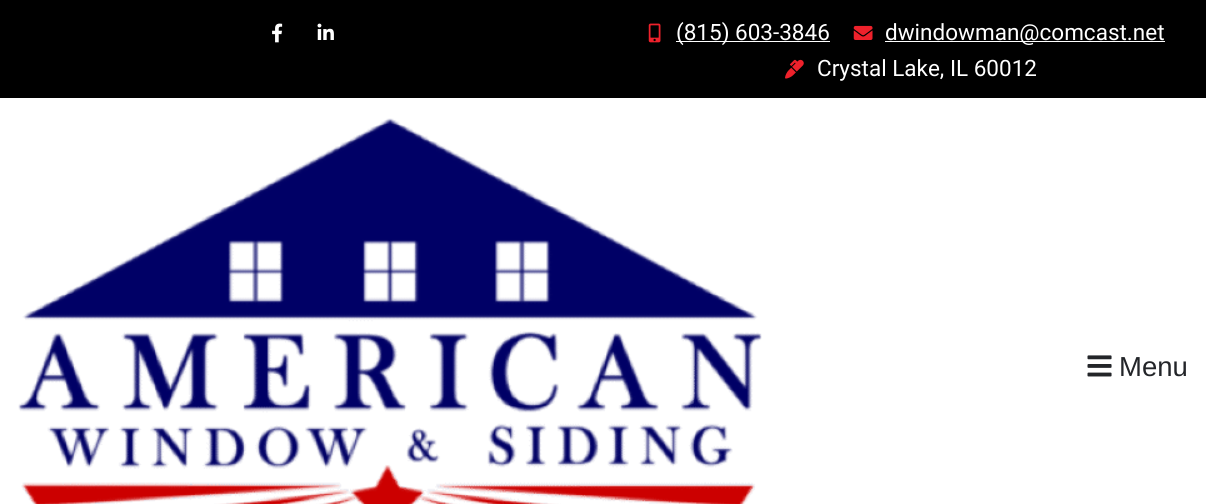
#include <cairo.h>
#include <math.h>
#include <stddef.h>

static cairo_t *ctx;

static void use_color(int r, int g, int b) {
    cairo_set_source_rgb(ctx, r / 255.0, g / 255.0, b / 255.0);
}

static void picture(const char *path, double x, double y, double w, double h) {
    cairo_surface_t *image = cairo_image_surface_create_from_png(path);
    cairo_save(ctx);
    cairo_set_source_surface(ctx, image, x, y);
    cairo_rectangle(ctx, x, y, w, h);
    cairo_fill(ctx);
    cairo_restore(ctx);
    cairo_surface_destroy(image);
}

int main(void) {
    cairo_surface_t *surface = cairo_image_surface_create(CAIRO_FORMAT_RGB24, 1206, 504);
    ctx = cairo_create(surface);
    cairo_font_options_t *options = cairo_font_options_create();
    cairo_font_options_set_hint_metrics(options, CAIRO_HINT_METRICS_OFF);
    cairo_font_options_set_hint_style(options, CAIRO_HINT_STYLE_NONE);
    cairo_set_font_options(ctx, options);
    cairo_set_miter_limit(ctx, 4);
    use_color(255, 255, 255);
    cairo_paint(ctx);
    use_color(0, 0, 0);
    cairo_rectangle(ctx, 0, 0, 1206, 98);
    cairo_fill(ctx);
    picture("img1.png", 272, 23, 11, 20);
    picture("img2.png", 317, 23, 17, 17);
    picture("img3.png", 648, 23, 13, 20);
    use_color(255, 255, 255);
    cairo_rectangle(ctx, 676, 41, 154, 1);
    cairo_fill(ctx);
    cairo_select_font_face(ctx, "Roboto", CAIRO_FONT_SLANT_NORMAL, CAIRO_FONT_WEIGHT_NORMAL);
    cairo_set_font_size(ctx, 22.5);
    cairo_move_to(ctx, 676, 40);
    cairo_show_text(ctx, "(815) 603-3846");
    picture("img4.png", 853, 25, 20, 15);
    cairo_rectangle(ctx, 885, 41, 280, 1);
    cairo_fill(ctx);
    cairo_move_to(ctx, 885, 40);
    cairo_show_text(ctx, "dwindowman@comcast.net");
    picture("img5.png", 785, 59, 19, 20);
    cairo_move_to(ctx, 817, 76);
    cairo_show_text(ctx, "Crystal Lake, IL 60012");
    picture("img6.png", 18, 118, 744, 386);
    picture("img7.png", 1087, 355, 25, 22);
    cairo_select_font_face(ctx, "Liberation Sans", CAIRO_FONT_SLANT_NORMAL, CAIRO_FONT_WEIGHT_NORMAL);
    cairo_set_font_size(ctx, 27.5);
    use_color(35, 37, 41);
    cairo_move_to(ctx, 1119, 376);
    cairo_show_text(ctx, "Menu");
    cairo_surface_write_to_png(surface, "result.png");
    cairo_font_options_destroy(options);
    cairo_destroy(ctx);
    cairo_surface_destroy(surface);
    return 0;
}
